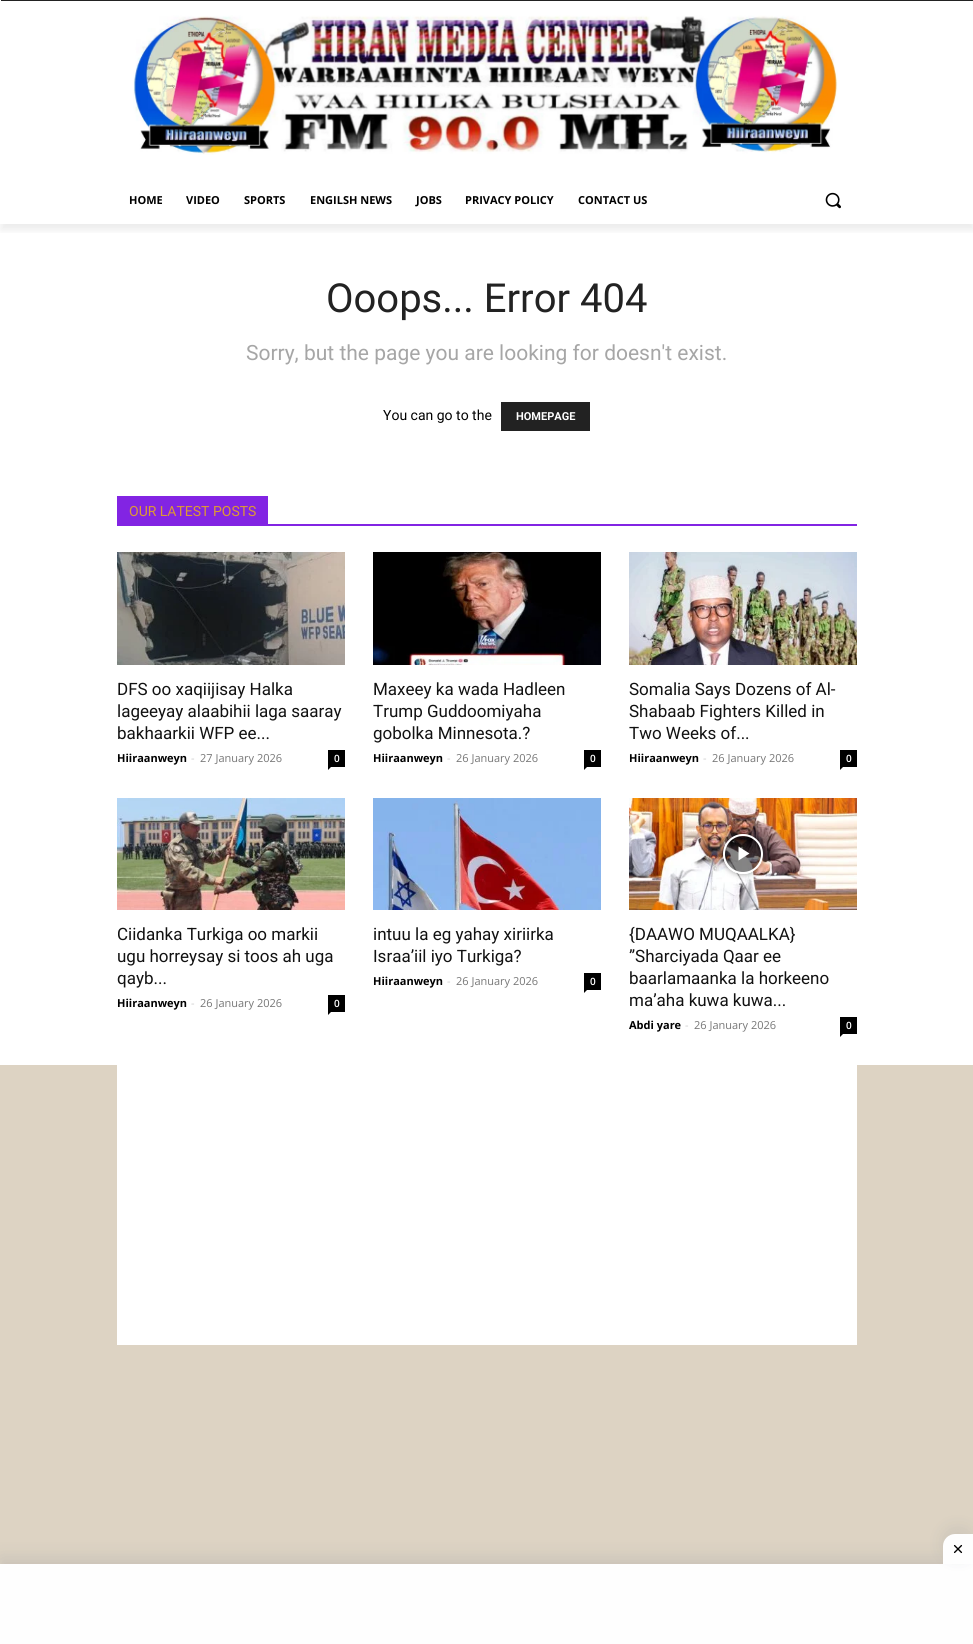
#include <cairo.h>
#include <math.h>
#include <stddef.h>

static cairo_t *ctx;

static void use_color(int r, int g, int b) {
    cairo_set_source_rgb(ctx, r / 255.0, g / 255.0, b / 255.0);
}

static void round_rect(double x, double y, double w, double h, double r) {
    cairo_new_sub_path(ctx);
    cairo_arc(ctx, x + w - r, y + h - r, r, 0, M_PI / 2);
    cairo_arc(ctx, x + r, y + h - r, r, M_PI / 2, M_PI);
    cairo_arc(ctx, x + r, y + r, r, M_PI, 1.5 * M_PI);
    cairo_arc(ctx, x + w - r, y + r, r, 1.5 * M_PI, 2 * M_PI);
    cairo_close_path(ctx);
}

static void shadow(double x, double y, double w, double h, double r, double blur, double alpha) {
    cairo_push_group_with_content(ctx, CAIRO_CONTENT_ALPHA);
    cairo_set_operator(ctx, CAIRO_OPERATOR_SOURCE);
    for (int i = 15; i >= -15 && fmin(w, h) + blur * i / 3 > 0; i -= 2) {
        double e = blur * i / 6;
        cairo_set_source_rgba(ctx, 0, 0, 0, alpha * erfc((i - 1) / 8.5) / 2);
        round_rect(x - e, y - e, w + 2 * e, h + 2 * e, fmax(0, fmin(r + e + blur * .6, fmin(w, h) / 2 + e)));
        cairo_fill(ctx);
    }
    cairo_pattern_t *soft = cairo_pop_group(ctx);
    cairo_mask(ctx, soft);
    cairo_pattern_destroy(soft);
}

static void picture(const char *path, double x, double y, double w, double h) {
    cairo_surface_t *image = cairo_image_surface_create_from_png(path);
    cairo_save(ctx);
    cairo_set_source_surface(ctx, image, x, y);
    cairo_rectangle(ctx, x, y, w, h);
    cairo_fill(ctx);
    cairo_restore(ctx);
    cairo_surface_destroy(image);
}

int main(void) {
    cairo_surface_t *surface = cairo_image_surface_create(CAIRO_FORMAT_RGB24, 973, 1644);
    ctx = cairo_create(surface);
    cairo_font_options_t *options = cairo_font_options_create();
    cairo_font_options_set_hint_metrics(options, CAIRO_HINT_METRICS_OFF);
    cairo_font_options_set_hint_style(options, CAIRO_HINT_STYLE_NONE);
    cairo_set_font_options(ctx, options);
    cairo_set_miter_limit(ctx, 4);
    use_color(221, 211, 195);
    cairo_paint(ctx);
    use_color(255, 255, 255);
    cairo_rectangle(ctx, 0, 0, 973, 1065);
    cairo_fill(ctx);
    use_color(34, 34, 34);
    cairo_rectangle(ctx, 1, 0, 972, 1);
    cairo_fill(ctx);
    picture("img1.png", 133, 15, 705, 140);
    cairo_save(ctx);
    cairo_rectangle(ctx, 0, 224, 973, 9);
    cairo_clip(ctx);
    use_color(0, 0, 0);
    shadow(1, 6, 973, 224, 0, 4, 0.08);
    cairo_restore(ctx);
    cairo_select_font_face(ctx, "Open Sans", CAIRO_FONT_SLANT_NORMAL, CAIRO_FONT_WEIGHT_BOLD);
    cairo_set_font_size(ctx, 11);
    use_color(0, 0, 0);
    cairo_move_to(ctx, 129, 204);
    cairo_show_text(ctx, "HOME");
    cairo_move_to(ctx, 186, 204);
    cairo_show_text(ctx, "VIDEO");
    cairo_move_to(ctx, 244, 204);
    cairo_show_text(ctx, "SPORTS");
    cairo_move_to(ctx, 310, 204);
    cairo_show_text(ctx, "ENGILSH NEWS");
    cairo_move_to(ctx, 416, 204);
    cairo_show_text(ctx, "JOBS");
    cairo_move_to(ctx, 465, 204);
    cairo_show_text(ctx, "PRIVACY POLICY");
    cairo_move_to(ctx, 578, 204);
    cairo_show_text(ctx, "CONTACT US");
    picture("img2.png", 825, 192, 16, 17);
    cairo_select_font_face(ctx, "Roboto", CAIRO_FONT_SLANT_NORMAL, CAIRO_FONT_WEIGHT_NORMAL);
    cairo_set_font_size(ctx, 40);
    use_color(34, 34, 34);
    cairo_move_to(ctx, 326, 312);
    cairo_show_text(ctx, "Ooops... Error 404");
    cairo_set_font_size(ctx, 21);
    use_color(166, 166, 166);
    cairo_move_to(ctx, 246, 360);
    cairo_show_text(ctx, "Sorry, but the page you are looking for doesn't exist.");
    cairo_set_font_size(ctx, 14);
    use_color(0, 0, 0);
    cairo_move_to(ctx, 383, 420);
    cairo_show_text(ctx, "You can go to the");
    use_color(34, 34, 34);
    cairo_rectangle(ctx, 501, 402, 89, 29);
    cairo_fill(ctx);
    cairo_select_font_face(ctx, "Roboto", CAIRO_FONT_SLANT_NORMAL, CAIRO_FONT_WEIGHT_BOLD);
    cairo_set_font_size(ctx, 11);
    use_color(255, 255, 255);
    cairo_move_to(ctx, 516, 420);
    cairo_show_text(ctx, "HOMEPAGE");
    use_color(130, 36, 227);
    cairo_rectangle(ctx, 117, 524, 740, 2);
    cairo_fill(ctx);
    cairo_rectangle(ctx, 117, 496, 151, 28);
    cairo_fill(ctx);
    cairo_select_font_face(ctx, "Roboto", CAIRO_FONT_SLANT_NORMAL, CAIRO_FONT_WEIGHT_NORMAL);
    cairo_set_font_size(ctx, 14);
    use_color(221, 153, 51);
    cairo_move_to(ctx, 129, 516);
    cairo_show_text(ctx, "OUR LATEST POSTS");
    picture("img3.png", 117, 552, 228, 113);
    cairo_set_font_size(ctx, 17);
    use_color(17, 17, 17);
    cairo_move_to(ctx, 117, 695);
    cairo_show_text(ctx, "DFS oo xaqiijisay Halka");
    cairo_move_to(ctx, 117, 717);
    cairo_show_text(ctx, "lageeyay alaabihii laga saaray");
    cairo_move_to(ctx, 117, 739);
    cairo_show_text(ctx, "bakhaarkii WFP ee...");
    cairo_select_font_face(ctx, "Open Sans", CAIRO_FONT_SLANT_NORMAL, CAIRO_FONT_WEIGHT_BOLD);
    cairo_set_font_size(ctx, 11);
    use_color(0, 0, 0);
    cairo_move_to(ctx, 117, 762);
    cairo_show_text(ctx, "Hiiraanweyn");
    cairo_select_font_face(ctx, "Open Sans", CAIRO_FONT_SLANT_NORMAL, CAIRO_FONT_WEIGHT_NORMAL);
    use_color(204, 204, 204);
    cairo_move_to(ctx, 191, 762);
    cairo_show_text(ctx, "-");
    use_color(118, 118, 118);
    cairo_move_to(ctx, 200, 762);
    cairo_show_text(ctx, "27 January 2026");
    use_color(0, 0, 0);
    cairo_rectangle(ctx, 328, 750, 17, 17);
    cairo_fill(ctx);
    cairo_select_font_face(ctx, "Open Sans SemiBold", CAIRO_FONT_SLANT_NORMAL, CAIRO_FONT_WEIGHT_NORMAL);
    cairo_set_font_size(ctx, 10);
    use_color(255, 255, 255);
    cairo_move_to(ctx, 334, 762);
    cairo_show_text(ctx, "0");
    use_color(0, 0, 0);
    cairo_new_path(ctx);
    cairo_move_to(ctx, 328, 767);
    cairo_line_to(ctx, 331, 767);
    cairo_line_to(ctx, 328, 770);
    cairo_close_path(ctx);
    cairo_fill(ctx);
    picture("img4.png", 373, 552, 228, 113);
    cairo_select_font_face(ctx, "Roboto", CAIRO_FONT_SLANT_NORMAL, CAIRO_FONT_WEIGHT_NORMAL);
    cairo_set_font_size(ctx, 17);
    use_color(17, 17, 17);
    cairo_move_to(ctx, 373, 695);
    cairo_show_text(ctx, "Maxeey ka wada Hadleen");
    cairo_move_to(ctx, 373, 717);
    cairo_show_text(ctx, "Trump Guddoomiyaha");
    cairo_move_to(ctx, 373, 739);
    cairo_show_text(ctx, "gobolka Minnesota.?");
    cairo_select_font_face(ctx, "Open Sans", CAIRO_FONT_SLANT_NORMAL, CAIRO_FONT_WEIGHT_BOLD);
    cairo_set_font_size(ctx, 11);
    use_color(0, 0, 0);
    cairo_move_to(ctx, 373, 762);
    cairo_show_text(ctx, "Hiiraanweyn");
    cairo_select_font_face(ctx, "Open Sans", CAIRO_FONT_SLANT_NORMAL, CAIRO_FONT_WEIGHT_NORMAL);
    use_color(204, 204, 204);
    cairo_move_to(ctx, 447, 762);
    cairo_show_text(ctx, "-");
    use_color(118, 118, 118);
    cairo_move_to(ctx, 456, 762);
    cairo_show_text(ctx, "26 January 2026");
    use_color(0, 0, 0);
    cairo_rectangle(ctx, 584, 750, 17, 17);
    cairo_fill(ctx);
    cairo_select_font_face(ctx, "Open Sans SemiBold", CAIRO_FONT_SLANT_NORMAL, CAIRO_FONT_WEIGHT_NORMAL);
    cairo_set_font_size(ctx, 10);
    use_color(255, 255, 255);
    cairo_move_to(ctx, 590, 762);
    cairo_show_text(ctx, "0");
    use_color(0, 0, 0);
    cairo_new_path(ctx);
    cairo_move_to(ctx, 584, 767);
    cairo_line_to(ctx, 587, 767);
    cairo_line_to(ctx, 584, 770);
    cairo_close_path(ctx);
    cairo_fill(ctx);
    picture("img5.png", 629, 552, 228, 113);
    cairo_select_font_face(ctx, "Roboto", CAIRO_FONT_SLANT_NORMAL, CAIRO_FONT_WEIGHT_NORMAL);
    cairo_set_font_size(ctx, 17);
    use_color(17, 17, 17);
    cairo_move_to(ctx, 629, 695);
    cairo_show_text(ctx, "Somalia Says Dozens of Al-");
    cairo_move_to(ctx, 629, 717);
    cairo_show_text(ctx, "Shabaab Fighters Killed in");
    cairo_move_to(ctx, 629, 739);
    cairo_show_text(ctx, "Two Weeks of...");
    cairo_select_font_face(ctx, "Open Sans", CAIRO_FONT_SLANT_NORMAL, CAIRO_FONT_WEIGHT_BOLD);
    cairo_set_font_size(ctx, 11);
    use_color(0, 0, 0);
    cairo_move_to(ctx, 629, 762);
    cairo_show_text(ctx, "Hiiraanweyn");
    cairo_select_font_face(ctx, "Open Sans", CAIRO_FONT_SLANT_NORMAL, CAIRO_FONT_WEIGHT_NORMAL);
    use_color(204, 204, 204);
    cairo_move_to(ctx, 703, 762);
    cairo_show_text(ctx, "-");
    use_color(118, 118, 118);
    cairo_move_to(ctx, 712, 762);
    cairo_show_text(ctx, "26 January 2026");
    use_color(0, 0, 0);
    cairo_rectangle(ctx, 840, 750, 17, 17);
    cairo_fill(ctx);
    cairo_select_font_face(ctx, "Open Sans SemiBold", CAIRO_FONT_SLANT_NORMAL, CAIRO_FONT_WEIGHT_NORMAL);
    cairo_set_font_size(ctx, 10);
    use_color(255, 255, 255);
    cairo_move_to(ctx, 846, 762);
    cairo_show_text(ctx, "0");
    use_color(0, 0, 0);
    cairo_new_path(ctx);
    cairo_move_to(ctx, 840, 767);
    cairo_line_to(ctx, 843, 767);
    cairo_line_to(ctx, 840, 770);
    cairo_close_path(ctx);
    cairo_fill(ctx);
    picture("img6.png", 117, 798, 228, 112);
    cairo_select_font_face(ctx, "Roboto", CAIRO_FONT_SLANT_NORMAL, CAIRO_FONT_WEIGHT_NORMAL);
    cairo_set_font_size(ctx, 17);
    use_color(17, 17, 17);
    cairo_move_to(ctx, 117, 940);
    cairo_show_text(ctx, "Ciidanka Turkiga oo markii");
    cairo_move_to(ctx, 117, 962);
    cairo_show_text(ctx, "ugu horreysay si toos ah uga");
    cairo_move_to(ctx, 117, 984);
    cairo_show_text(ctx, "qayb...");
    cairo_select_font_face(ctx, "Open Sans", CAIRO_FONT_SLANT_NORMAL, CAIRO_FONT_WEIGHT_BOLD);
    cairo_set_font_size(ctx, 11);
    use_color(0, 0, 0);
    cairo_move_to(ctx, 117, 1007);
    cairo_show_text(ctx, "Hiiraanweyn");
    cairo_select_font_face(ctx, "Open Sans", CAIRO_FONT_SLANT_NORMAL, CAIRO_FONT_WEIGHT_NORMAL);
    use_color(204, 204, 204);
    cairo_move_to(ctx, 191, 1007);
    cairo_show_text(ctx, "-");
    use_color(118, 118, 118);
    cairo_move_to(ctx, 200, 1007);
    cairo_show_text(ctx, "26 January 2026");
    use_color(0, 0, 0);
    cairo_rectangle(ctx, 328, 995, 17, 17);
    cairo_fill(ctx);
    cairo_select_font_face(ctx, "Open Sans SemiBold", CAIRO_FONT_SLANT_NORMAL, CAIRO_FONT_WEIGHT_NORMAL);
    cairo_set_font_size(ctx, 10);
    use_color(255, 255, 255);
    cairo_move_to(ctx, 334, 1007);
    cairo_show_text(ctx, "0");
    use_color(0, 0, 0);
    cairo_new_path(ctx);
    cairo_move_to(ctx, 328, 1012);
    cairo_line_to(ctx, 331, 1012);
    cairo_line_to(ctx, 328, 1015);
    cairo_close_path(ctx);
    cairo_fill(ctx);
    picture("img7.png", 373, 798, 228, 112);
    cairo_select_font_face(ctx, "Roboto", CAIRO_FONT_SLANT_NORMAL, CAIRO_FONT_WEIGHT_NORMAL);
    cairo_set_font_size(ctx, 17);
    use_color(17, 17, 17);
    cairo_move_to(ctx, 373, 940);
    cairo_show_text(ctx, "intuu la eg yahay xiriirka");
    cairo_move_to(ctx, 373, 962);
    cairo_show_text(ctx, "Israa’iil iyo Turkiga?");
    cairo_select_font_face(ctx, "Open Sans", CAIRO_FONT_SLANT_NORMAL, CAIRO_FONT_WEIGHT_BOLD);
    cairo_set_font_size(ctx, 11);
    use_color(0, 0, 0);
    cairo_move_to(ctx, 373, 985);
    cairo_show_text(ctx, "Hiiraanweyn");
    cairo_select_font_face(ctx, "Open Sans", CAIRO_FONT_SLANT_NORMAL, CAIRO_FONT_WEIGHT_NORMAL);
    use_color(204, 204, 204);
    cairo_move_to(ctx, 447, 985);
    cairo_show_text(ctx, "-");
    use_color(118, 118, 118);
    cairo_move_to(ctx, 456, 985);
    cairo_show_text(ctx, "26 January 2026");
    use_color(0, 0, 0);
    cairo_rectangle(ctx, 584, 973, 17, 17);
    cairo_fill(ctx);
    cairo_select_font_face(ctx, "Open Sans SemiBold", CAIRO_FONT_SLANT_NORMAL, CAIRO_FONT_WEIGHT_NORMAL);
    cairo_set_font_size(ctx, 10);
    use_color(255, 255, 255);
    cairo_move_to(ctx, 590, 985);
    cairo_show_text(ctx, "0");
    use_color(0, 0, 0);
    cairo_new_path(ctx);
    cairo_move_to(ctx, 584, 990);
    cairo_line_to(ctx, 587, 990);
    cairo_line_to(ctx, 584, 993);
    cairo_close_path(ctx);
    cairo_fill(ctx);
    picture("img8.png", 629, 798, 228, 112);
    cairo_save(ctx);
    cairo_set_fill_rule(ctx, CAIRO_FILL_RULE_EVEN_ODD);
    cairo_new_path(ctx);
    cairo_move_to(ctx, 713, 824);
    cairo_line_to(ctx, 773, 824);
    cairo_line_to(ctx, 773, 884);
    cairo_line_to(ctx, 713, 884);
    cairo_close_path(ctx);
    cairo_move_to(ctx, 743, 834);
    cairo_curve_to(ctx, 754, 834, 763, 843, 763, 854);
    cairo_curve_to(ctx, 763, 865, 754, 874, 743, 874);
    cairo_curve_to(ctx, 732, 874, 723, 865, 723, 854);
    cairo_curve_to(ctx, 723, 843, 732, 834, 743, 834);
    cairo_close_path(ctx);
    cairo_clip(ctx);
    use_color(0, 0, 0);
    shadow(723, 834, 40, 40, 20, 3, 0.4);
    cairo_restore(ctx);
    cairo_set_source_rgba(ctx, 0, 0, 0, 0.48);
    cairo_arc(ctx, 743, 854, 19, 0, 2 * M_PI);
    cairo_fill_preserve(ctx);
    use_color(255, 255, 255);
    cairo_stroke(ctx);
    cairo_new_path(ctx);
    cairo_move_to(ctx, 738.5, 846.5);
    cairo_line_to(ctx, 738.5, 860.5);
    cairo_line_to(ctx, 749.5, 853.5);
    cairo_close_path(ctx);
    cairo_fill(ctx);
    cairo_select_font_face(ctx, "Roboto", CAIRO_FONT_SLANT_NORMAL, CAIRO_FONT_WEIGHT_NORMAL);
    cairo_set_font_size(ctx, 17);
    use_color(17, 17, 17);
    cairo_move_to(ctx, 629, 940);
    cairo_show_text(ctx, "{DAAWO MUQAALKA}");
    cairo_move_to(ctx, 629, 962);
    cairo_show_text(ctx, "”Sharciyada Qaar ee");
    cairo_move_to(ctx, 629, 984);
    cairo_show_text(ctx, "baarlamaanka la horkeeno");
    cairo_move_to(ctx, 629, 1006);
    cairo_show_text(ctx, "ma’aha kuwa kuwa...");
    cairo_select_font_face(ctx, "Open Sans", CAIRO_FONT_SLANT_NORMAL, CAIRO_FONT_WEIGHT_BOLD);
    cairo_set_font_size(ctx, 11);
    use_color(0, 0, 0);
    cairo_move_to(ctx, 629, 1029);
    cairo_show_text(ctx, "Abdi yare");
    cairo_select_font_face(ctx, "Open Sans", CAIRO_FONT_SLANT_NORMAL, CAIRO_FONT_WEIGHT_NORMAL);
    use_color(204, 204, 204);
    cairo_move_to(ctx, 685, 1029);
    cairo_show_text(ctx, "-");
    use_color(118, 118, 118);
    cairo_move_to(ctx, 694, 1029);
    cairo_show_text(ctx, "26 January 2026");
    use_color(0, 0, 0);
    cairo_rectangle(ctx, 840, 1017, 17, 17);
    cairo_fill(ctx);
    cairo_select_font_face(ctx, "Open Sans SemiBold", CAIRO_FONT_SLANT_NORMAL, CAIRO_FONT_WEIGHT_NORMAL);
    cairo_set_font_size(ctx, 10);
    use_color(255, 255, 255);
    cairo_move_to(ctx, 846, 1029);
    cairo_show_text(ctx, "0");
    use_color(0, 0, 0);
    cairo_new_path(ctx);
    cairo_move_to(ctx, 840, 1034);
    cairo_line_to(ctx, 843, 1034);
    cairo_line_to(ctx, 840, 1037);
    cairo_close_path(ctx);
    cairo_fill(ctx);
    use_color(255, 255, 255);
    cairo_rectangle(ctx, 117, 1065, 740, 280);
    cairo_fill(ctx);
    use_color(9, 32, 76);
    shadow(0, 1558, 973, 80, 0, 9, 0.1);
    use_color(254, 254, 254);
    cairo_rectangle(ctx, 0, 1564, 973, 80);
    cairo_fill(ctx);
    use_color(9, 32, 76);
    shadow(943, 1528, 30, 30, 12, 9, 0.08);
    use_color(254, 254, 254);
    cairo_new_path(ctx);
    cairo_move_to(ctx, 955, 1534);
    cairo_line_to(ctx, 973, 1534);
    cairo_line_to(ctx, 973, 1564);
    cairo_line_to(ctx, 943, 1564);
    cairo_line_to(ctx, 943, 1546);
    cairo_curve_to(ctx, 943, 1539.5, 948.5, 1534, 955, 1534);
    cairo_close_path(ctx);
    cairo_fill(ctx);
    picture("img9.png", 953, 1544, 10, 10);
    cairo_surface_write_to_png(surface, "result.png");
    cairo_font_options_destroy(options);
    cairo_destroy(ctx);
    cairo_surface_destroy(surface);
    return 0;
}
